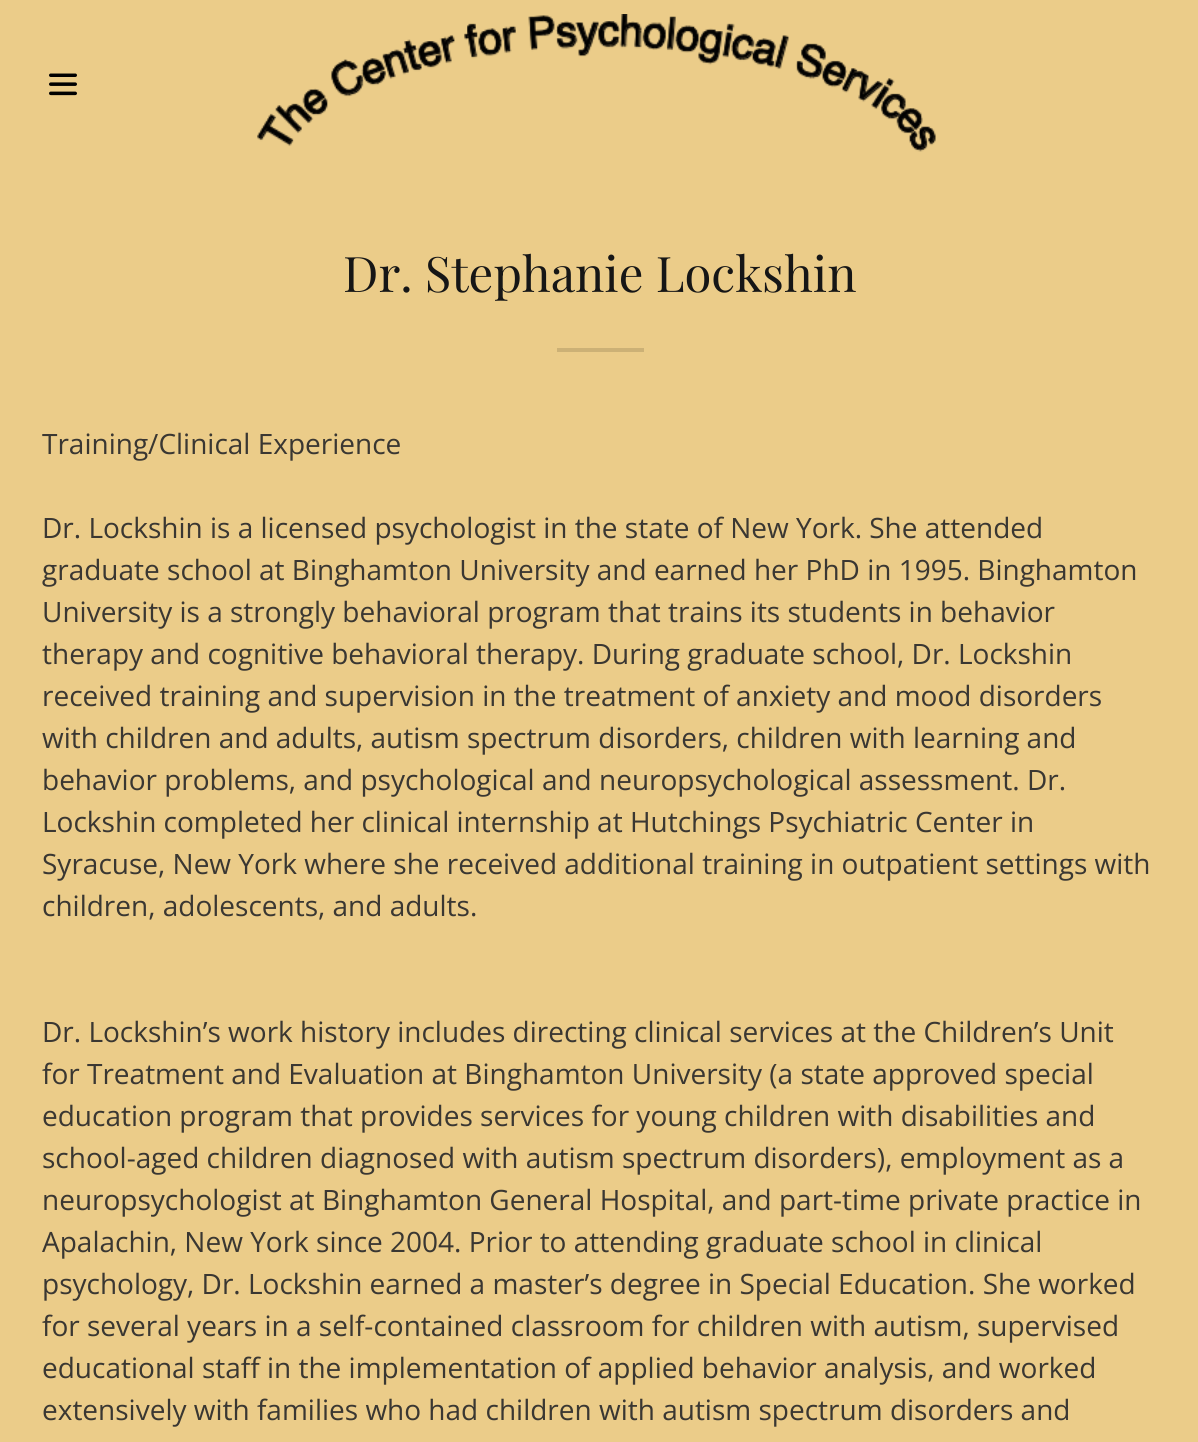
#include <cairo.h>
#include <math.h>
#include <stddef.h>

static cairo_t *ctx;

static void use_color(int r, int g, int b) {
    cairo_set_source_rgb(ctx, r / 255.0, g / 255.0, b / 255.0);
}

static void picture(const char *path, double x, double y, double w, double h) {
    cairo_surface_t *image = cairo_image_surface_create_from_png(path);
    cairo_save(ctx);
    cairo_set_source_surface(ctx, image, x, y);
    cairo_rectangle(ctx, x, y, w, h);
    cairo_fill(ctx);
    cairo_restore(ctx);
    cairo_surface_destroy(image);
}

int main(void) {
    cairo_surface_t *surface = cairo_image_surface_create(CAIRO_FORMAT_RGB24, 1198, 1442);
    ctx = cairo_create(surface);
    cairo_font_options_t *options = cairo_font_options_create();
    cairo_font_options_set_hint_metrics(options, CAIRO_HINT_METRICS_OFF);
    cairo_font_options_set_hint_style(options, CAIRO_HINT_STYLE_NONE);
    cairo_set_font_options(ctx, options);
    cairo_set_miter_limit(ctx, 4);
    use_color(235, 204, 137);
    cairo_paint(ctx);
    picture("img1.png", 49, 73, 28, 23);
    picture("img2.png", 257, 14, 679, 138);
    cairo_select_font_face(ctx, "Playfair Display", CAIRO_FONT_SLANT_NORMAL, CAIRO_FONT_WEIGHT_NORMAL);
    cairo_set_font_size(ctx, 49);
    use_color(22, 22, 22);
    cairo_move_to(ctx, 343, 292);
    cairo_show_text(ctx, "Dr. Stephanie Lockshin");
    use_color(204, 177, 118);
    cairo_rectangle(ctx, 557, 348, 87, 4);
    cairo_fill(ctx);
    cairo_select_font_face(ctx, "Open Sans", CAIRO_FONT_SLANT_NORMAL, CAIRO_FONT_WEIGHT_NORMAL);
    cairo_set_font_size(ctx, 28);
    use_color(58, 55, 50);
    cairo_move_to(ctx, 42, 454);
    cairo_show_text(ctx, "Training/Clinical Experience");
    cairo_move_to(ctx, 42, 538);
    cairo_show_text(ctx, "Dr. Lockshin is a licensed psychologist in the state of New York. She attended");
    cairo_move_to(ctx, 42, 580);
    cairo_show_text(ctx, "graduate school at Binghamton University and earned her PhD in 1995. Binghamton");
    cairo_move_to(ctx, 42, 622);
    cairo_show_text(ctx, "University is a strongly behavioral program that trains its students in behavior");
    cairo_move_to(ctx, 42, 664);
    cairo_show_text(ctx, "therapy and cognitive behavioral therapy. During graduate school, Dr. Lockshin");
    cairo_move_to(ctx, 42, 706);
    cairo_show_text(ctx, "received training and supervision in the treatment of anxiety and mood disorders");
    cairo_move_to(ctx, 42, 748);
    cairo_show_text(ctx, "with children and adults, autism spectrum disorders, children with learning and");
    cairo_move_to(ctx, 42, 790);
    cairo_show_text(ctx, "behavior problems, and psychological and neuropsychological assessment. Dr.");
    cairo_move_to(ctx, 42, 832);
    cairo_show_text(ctx, "Lockshin completed her clinical internship at Hutchings Psychiatric Center in");
    cairo_move_to(ctx, 42, 874);
    cairo_show_text(ctx, "Syracuse, New York where she received additional training in outpatient settings with");
    cairo_move_to(ctx, 42, 916);
    cairo_show_text(ctx, "children, adolescents, and adults.");
    cairo_move_to(ctx, 42, 1042);
    cairo_show_text(ctx, "Dr. Lockshin’s work history includes directing clinical services at the Children’s Unit");
    cairo_move_to(ctx, 42, 1084);
    cairo_show_text(ctx, "for Treatment and Evaluation at Binghamton University (a state approved special");
    cairo_move_to(ctx, 42, 1126);
    cairo_show_text(ctx, "education program that provides services for young children with disabilities and");
    cairo_move_to(ctx, 42, 1168);
    cairo_show_text(ctx, "school-aged children diagnosed with autism spectrum disorders), employment as a");
    cairo_move_to(ctx, 42, 1210);
    cairo_show_text(ctx, "neuropsychologist at Binghamton General Hospital, and part-time private practice in");
    cairo_move_to(ctx, 42, 1252);
    cairo_show_text(ctx, "Apalachin, New York since 2004. Prior to attending graduate school in clinical");
    cairo_move_to(ctx, 42, 1294);
    cairo_show_text(ctx, "psychology, Dr. Lockshin earned a master’s degree in Special Education. She worked");
    cairo_move_to(ctx, 42, 1336);
    cairo_show_text(ctx, "for several years in a self-contained classroom for children with autism, supervised");
    cairo_move_to(ctx, 42, 1378);
    cairo_show_text(ctx, "educational staff in the implementation of applied behavior analysis, and worked");
    cairo_move_to(ctx, 42, 1420);
    cairo_show_text(ctx, "extensively with families who had children with autism spectrum disorders and");
    cairo_surface_write_to_png(surface, "result.png");
    cairo_font_options_destroy(options);
    cairo_destroy(ctx);
    cairo_surface_destroy(surface);
    return 0;
}
